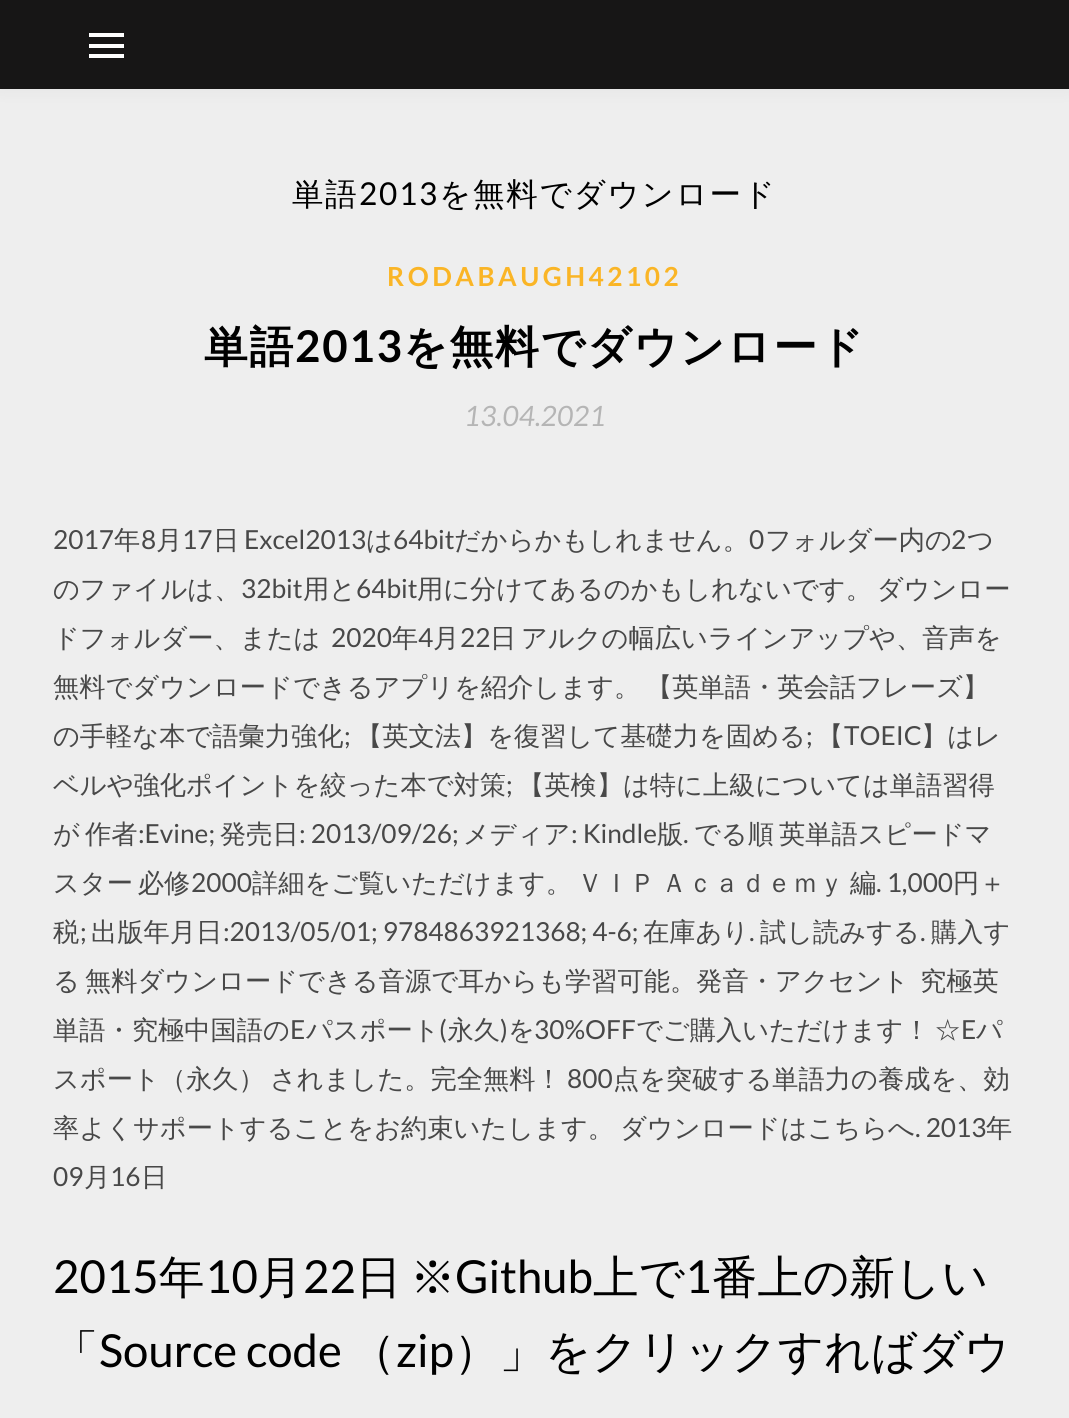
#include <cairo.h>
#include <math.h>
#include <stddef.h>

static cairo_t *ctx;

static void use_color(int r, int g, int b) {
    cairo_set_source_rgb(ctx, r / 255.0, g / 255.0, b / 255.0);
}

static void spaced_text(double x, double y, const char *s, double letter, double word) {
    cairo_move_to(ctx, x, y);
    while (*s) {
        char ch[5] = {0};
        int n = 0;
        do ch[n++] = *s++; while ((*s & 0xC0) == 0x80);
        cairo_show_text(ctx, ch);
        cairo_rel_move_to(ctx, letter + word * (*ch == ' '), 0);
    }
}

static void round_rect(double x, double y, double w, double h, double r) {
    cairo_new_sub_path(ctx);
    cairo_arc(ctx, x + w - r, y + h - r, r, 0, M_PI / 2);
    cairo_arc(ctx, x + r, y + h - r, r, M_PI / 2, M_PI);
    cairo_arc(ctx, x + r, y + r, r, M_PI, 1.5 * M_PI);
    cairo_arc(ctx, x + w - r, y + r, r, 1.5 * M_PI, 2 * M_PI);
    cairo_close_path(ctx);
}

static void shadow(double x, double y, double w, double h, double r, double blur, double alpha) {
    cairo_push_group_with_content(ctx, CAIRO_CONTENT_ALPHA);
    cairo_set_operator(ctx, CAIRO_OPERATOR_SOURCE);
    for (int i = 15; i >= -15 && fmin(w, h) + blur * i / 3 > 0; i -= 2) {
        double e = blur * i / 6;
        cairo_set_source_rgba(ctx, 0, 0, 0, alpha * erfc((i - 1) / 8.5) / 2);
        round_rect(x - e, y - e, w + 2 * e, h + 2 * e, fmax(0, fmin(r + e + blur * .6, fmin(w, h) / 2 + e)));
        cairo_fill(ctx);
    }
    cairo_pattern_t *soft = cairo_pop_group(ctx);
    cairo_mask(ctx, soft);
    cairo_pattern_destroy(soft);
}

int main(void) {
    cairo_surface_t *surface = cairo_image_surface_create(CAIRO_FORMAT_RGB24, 1069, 1418);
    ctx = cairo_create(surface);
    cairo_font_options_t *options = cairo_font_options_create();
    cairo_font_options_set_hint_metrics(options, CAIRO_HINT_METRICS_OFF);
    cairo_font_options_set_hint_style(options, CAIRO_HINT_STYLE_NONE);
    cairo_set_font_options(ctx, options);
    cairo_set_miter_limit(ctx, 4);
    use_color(238, 238, 238);
    cairo_paint(ctx);
    use_color(0, 0, 0);
    shadow(0, 0, 1069, 89, 0, 9, 0.05);
    use_color(23, 22, 22);
    cairo_rectangle(ctx, 0, 0, 1069, 89);
    cairo_fill(ctx);
    use_color(255, 255, 255);
    cairo_rectangle(ctx, 89, 33, 35, 4);
    cairo_fill(ctx);
    cairo_rectangle(ctx, 89, 44, 35, 4);
    cairo_fill(ctx);
    cairo_rectangle(ctx, 89, 54, 35, 4);
    cairo_fill(ctx);
    cairo_select_font_face(ctx, "WenQuanYi Zen Hei Medium", CAIRO_FONT_SLANT_NORMAL, CAIRO_FONT_WEIGHT_NORMAL);
    cairo_set_font_size(ctx, 31.5);
    use_color(0, 0, 0);
    spaced_text(292, 205, "単語", 1.75, 0);
    cairo_select_font_face(ctx, "Lato", CAIRO_FONT_SLANT_NORMAL, CAIRO_FONT_WEIGHT_NORMAL);
    spaced_text(359, 205, "2013", 1.75, 0);
    cairo_select_font_face(ctx, "WenQuanYi Zen Hei Medium", CAIRO_FONT_SLANT_NORMAL, CAIRO_FONT_WEIGHT_NORMAL);
    spaced_text(439, 205, "を無料でダウンロード", 1.75, 0);
    cairo_select_font_face(ctx, "Lato", CAIRO_FONT_SLANT_NORMAL, CAIRO_FONT_WEIGHT_BOLD);
    cairo_set_font_size(ctx, 26.25);
    use_color(250, 181, 38);
    spaced_text(387, 286, "RODABAUGH42102", 3.5, 0);
    cairo_select_font_face(ctx, "WenQuanYi Zen Hei", CAIRO_FONT_SLANT_NORMAL, CAIRO_FONT_WEIGHT_BOLD);
    cairo_set_font_size(ctx, 43.75);
    use_color(0, 0, 0);
    spaced_text(204, 362, "単語", 1.75, 0);
    cairo_select_font_face(ctx, "Lato", CAIRO_FONT_SLANT_NORMAL, CAIRO_FONT_WEIGHT_BOLD);
    spaced_text(295, 362, "2013", 1.75, 0);
    cairo_select_font_face(ctx, "WenQuanYi Zen Hei", CAIRO_FONT_SLANT_NORMAL, CAIRO_FONT_WEIGHT_BOLD);
    spaced_text(403, 362, "を無料でダウンロード", 1.75, 0);
    cairo_select_font_face(ctx, "Lato", CAIRO_FONT_SLANT_ITALIC, CAIRO_FONT_WEIGHT_NORMAL);
    cairo_set_font_size(ctx, 28);
    use_color(181, 181, 181);
    cairo_move_to(ctx, 464, 426);
    cairo_show_text(ctx, "13.04.2021");
    cairo_select_font_face(ctx, "Lato", CAIRO_FONT_SLANT_NORMAL, CAIRO_FONT_WEIGHT_NORMAL);
    cairo_set_font_size(ctx, 26.25);
    use_color(72, 72, 72);
    cairo_move_to(ctx, 53, 549);
    cairo_show_text(ctx, "2017");
    cairo_select_font_face(ctx, "WenQuanYi Zen Hei Medium", CAIRO_FONT_SLANT_NORMAL, CAIRO_FONT_WEIGHT_NORMAL);
    cairo_move_to(ctx, 114, 549);
    cairo_show_text(ctx, "年");
    cairo_select_font_face(ctx, "Lato", CAIRO_FONT_SLANT_NORMAL, CAIRO_FONT_WEIGHT_NORMAL);
    cairo_move_to(ctx, 141, 549);
    cairo_show_text(ctx, "8");
    cairo_select_font_face(ctx, "WenQuanYi Zen Hei Medium", CAIRO_FONT_SLANT_NORMAL, CAIRO_FONT_WEIGHT_NORMAL);
    cairo_move_to(ctx, 156, 549);
    cairo_show_text(ctx, "月");
    cairo_select_font_face(ctx, "Lato", CAIRO_FONT_SLANT_NORMAL, CAIRO_FONT_WEIGHT_NORMAL);
    cairo_move_to(ctx, 182, 549);
    cairo_show_text(ctx, "17");
    cairo_select_font_face(ctx, "WenQuanYi Zen Hei Medium", CAIRO_FONT_SLANT_NORMAL, CAIRO_FONT_WEIGHT_NORMAL);
    cairo_move_to(ctx, 213, 549);
    cairo_show_text(ctx, "日");
    cairo_select_font_face(ctx, "Lato", CAIRO_FONT_SLANT_NORMAL, CAIRO_FONT_WEIGHT_NORMAL);
    cairo_move_to(ctx, 244, 549);
    cairo_show_text(ctx, "Excel2013");
    cairo_select_font_face(ctx, "WenQuanYi Zen Hei Medium", CAIRO_FONT_SLANT_NORMAL, CAIRO_FONT_WEIGHT_NORMAL);
    cairo_move_to(ctx, 366, 549);
    cairo_show_text(ctx, "は");
    cairo_select_font_face(ctx, "Lato", CAIRO_FONT_SLANT_NORMAL, CAIRO_FONT_WEIGHT_NORMAL);
    cairo_move_to(ctx, 393, 549);
    cairo_show_text(ctx, "64bit");
    cairo_select_font_face(ctx, "WenQuanYi Zen Hei Medium", CAIRO_FONT_SLANT_NORMAL, CAIRO_FONT_WEIGHT_NORMAL);
    cairo_move_to(ctx, 454, 549);
    cairo_show_text(ctx, "だからかもしれません。");
    cairo_select_font_face(ctx, "Lato", CAIRO_FONT_SLANT_NORMAL, CAIRO_FONT_WEIGHT_NORMAL);
    cairo_move_to(ctx, 749, 549);
    cairo_show_text(ctx, "0");
    cairo_select_font_face(ctx, "WenQuanYi Zen Hei Medium", CAIRO_FONT_SLANT_NORMAL, CAIRO_FONT_WEIGHT_NORMAL);
    cairo_move_to(ctx, 765, 549);
    cairo_show_text(ctx, "フォルダー内の");
    cairo_select_font_face(ctx, "Lato", CAIRO_FONT_SLANT_NORMAL, CAIRO_FONT_WEIGHT_NORMAL);
    cairo_move_to(ctx, 951, 549);
    cairo_show_text(ctx, "2");
    cairo_select_font_face(ctx, "WenQuanYi Zen Hei Medium", CAIRO_FONT_SLANT_NORMAL, CAIRO_FONT_WEIGHT_NORMAL);
    cairo_move_to(ctx, 967, 549);
    cairo_show_text(ctx, "つ");
    cairo_move_to(ctx, 53, 598);
    cairo_show_text(ctx, "のファイルは、");
    cairo_select_font_face(ctx, "Lato", CAIRO_FONT_SLANT_NORMAL, CAIRO_FONT_WEIGHT_NORMAL);
    cairo_move_to(ctx, 241, 598);
    cairo_show_text(ctx, "32bit");
    cairo_select_font_face(ctx, "WenQuanYi Zen Hei Medium", CAIRO_FONT_SLANT_NORMAL, CAIRO_FONT_WEIGHT_NORMAL);
    cairo_move_to(ctx, 303, 598);
    cairo_show_text(ctx, "用と");
    cairo_select_font_face(ctx, "Lato", CAIRO_FONT_SLANT_NORMAL, CAIRO_FONT_WEIGHT_NORMAL);
    cairo_move_to(ctx, 356, 598);
    cairo_show_text(ctx, "64bit");
    cairo_select_font_face(ctx, "WenQuanYi Zen Hei Medium", CAIRO_FONT_SLANT_NORMAL, CAIRO_FONT_WEIGHT_NORMAL);
    spaced_text(417, 598, "用に分けてあるのかもしれないです。 ダウンロー", 0, -3);
    cairo_move_to(ctx, 53, 647);
    cairo_show_text(ctx, "ドフォルダー、または");
    cairo_select_font_face(ctx, "Lato", CAIRO_FONT_SLANT_NORMAL, CAIRO_FONT_WEIGHT_NORMAL);
    cairo_move_to(ctx, 331, 647);
    cairo_show_text(ctx, "2020");
    cairo_select_font_face(ctx, "WenQuanYi Zen Hei Medium", CAIRO_FONT_SLANT_NORMAL, CAIRO_FONT_WEIGHT_NORMAL);
    cairo_move_to(ctx, 392, 647);
    cairo_show_text(ctx, "年");
    cairo_select_font_face(ctx, "Lato", CAIRO_FONT_SLANT_NORMAL, CAIRO_FONT_WEIGHT_NORMAL);
    cairo_move_to(ctx, 418, 647);
    cairo_show_text(ctx, "4");
    cairo_select_font_face(ctx, "WenQuanYi Zen Hei Medium", CAIRO_FONT_SLANT_NORMAL, CAIRO_FONT_WEIGHT_NORMAL);
    cairo_move_to(ctx, 433, 647);
    cairo_show_text(ctx, "月");
    cairo_select_font_face(ctx, "Lato", CAIRO_FONT_SLANT_NORMAL, CAIRO_FONT_WEIGHT_NORMAL);
    cairo_move_to(ctx, 460, 647);
    cairo_show_text(ctx, "22");
    cairo_select_font_face(ctx, "WenQuanYi Zen Hei Medium", CAIRO_FONT_SLANT_NORMAL, CAIRO_FONT_WEIGHT_NORMAL);
    cairo_move_to(ctx, 490, 647);
    cairo_show_text(ctx, "日");
    cairo_move_to(ctx, 521, 647);
    cairo_show_text(ctx, "アルクの幅広いラインアップや、音声を");
    cairo_move_to(ctx, 53, 696);
    cairo_show_text(ctx, "無料でダウンロードできるアプリを紹介します。");
    cairo_move_to(ctx, 646, 696);
    cairo_show_text(ctx, "【英単語・英会話フレーズ】");
    cairo_move_to(ctx, 53, 745);
    cairo_show_text(ctx, "の手軽な本で語彙力強化");
    cairo_select_font_face(ctx, "Lato", CAIRO_FONT_SLANT_NORMAL, CAIRO_FONT_WEIGHT_NORMAL);
    cairo_move_to(ctx, 344, 745);
    cairo_show_text(ctx, ";");
    cairo_select_font_face(ctx, "WenQuanYi Zen Hei Medium", CAIRO_FONT_SLANT_NORMAL, CAIRO_FONT_WEIGHT_NORMAL);
    cairo_move_to(ctx, 356, 745);
    cairo_show_text(ctx, "【英文法】を復習して基礎力を固める");
    cairo_select_font_face(ctx, "Lato", CAIRO_FONT_SLANT_NORMAL, CAIRO_FONT_WEIGHT_NORMAL);
    cairo_move_to(ctx, 806, 745);
    cairo_show_text(ctx, ";");
    cairo_select_font_face(ctx, "WenQuanYi Zen Hei Medium", CAIRO_FONT_SLANT_NORMAL, CAIRO_FONT_WEIGHT_NORMAL);
    cairo_move_to(ctx, 817, 745);
    cairo_show_text(ctx, "【");
    cairo_select_font_face(ctx, "Lato", CAIRO_FONT_SLANT_NORMAL, CAIRO_FONT_WEIGHT_NORMAL);
    cairo_move_to(ctx, 844, 745);
    cairo_show_text(ctx, "TOEIC");
    cairo_select_font_face(ctx, "WenQuanYi Zen Hei Medium", CAIRO_FONT_SLANT_NORMAL, CAIRO_FONT_WEIGHT_NORMAL);
    cairo_move_to(ctx, 921, 745);
    cairo_show_text(ctx, "】はレ");
    cairo_move_to(ctx, 53, 794);
    cairo_show_text(ctx, "ベルや強化ポイントを絞った本で対策");
    cairo_select_font_face(ctx, "Lato", CAIRO_FONT_SLANT_NORMAL, CAIRO_FONT_WEIGHT_NORMAL);
    cairo_move_to(ctx, 506, 794);
    cairo_show_text(ctx, ";");
    cairo_select_font_face(ctx, "WenQuanYi Zen Hei Medium", CAIRO_FONT_SLANT_NORMAL, CAIRO_FONT_WEIGHT_NORMAL);
    cairo_move_to(ctx, 518, 794);
    cairo_show_text(ctx, "【英検】は特に上級については単語習得");
    cairo_move_to(ctx, 53, 843);
    cairo_show_text(ctx, "が");
    cairo_move_to(ctx, 85, 843);
    cairo_show_text(ctx, "作者");
    cairo_select_font_face(ctx, "Lato", CAIRO_FONT_SLANT_NORMAL, CAIRO_FONT_WEIGHT_NORMAL);
    cairo_move_to(ctx, 138, 843);
    cairo_show_text(ctx, ":Evine;");
    cairo_select_font_face(ctx, "WenQuanYi Zen Hei Medium", CAIRO_FONT_SLANT_NORMAL, CAIRO_FONT_WEIGHT_NORMAL);
    cairo_move_to(ctx, 220, 843);
    cairo_show_text(ctx, "発売日");
    cairo_select_font_face(ctx, "Lato", CAIRO_FONT_SLANT_NORMAL, CAIRO_FONT_WEIGHT_NORMAL);
    cairo_move_to(ctx, 299, 843);
    cairo_show_text(ctx, ": 2013/09/26;");
    cairo_select_font_face(ctx, "WenQuanYi Zen Hei Medium", CAIRO_FONT_SLANT_NORMAL, CAIRO_FONT_WEIGHT_NORMAL);
    cairo_move_to(ctx, 463, 843);
    cairo_show_text(ctx, "メディア");
    cairo_select_font_face(ctx, "Lato", CAIRO_FONT_SLANT_NORMAL, CAIRO_FONT_WEIGHT_NORMAL);
    cairo_move_to(ctx, 571, 843);
    cairo_show_text(ctx, ": Kindle");
    cairo_select_font_face(ctx, "WenQuanYi Zen Hei Medium", CAIRO_FONT_SLANT_NORMAL, CAIRO_FONT_WEIGHT_NORMAL);
    cairo_move_to(ctx, 657, 843);
    cairo_show_text(ctx, "版");
    cairo_select_font_face(ctx, "Lato", CAIRO_FONT_SLANT_NORMAL, CAIRO_FONT_WEIGHT_NORMAL);
    cairo_move_to(ctx, 683, 843);
    cairo_show_text(ctx, ".");
    cairo_select_font_face(ctx, "WenQuanYi Zen Hei Medium", CAIRO_FONT_SLANT_NORMAL, CAIRO_FONT_WEIGHT_NORMAL);
    cairo_move_to(ctx, 694, 843);
    cairo_show_text(ctx, "でる順");
    cairo_move_to(ctx, 779, 843);
    cairo_show_text(ctx, "英単語スピードマ");
    spaced_text(53, 892, "スター 必修", 0, -3);
    cairo_select_font_face(ctx, "Lato", CAIRO_FONT_SLANT_NORMAL, CAIRO_FONT_WEIGHT_NORMAL);
    cairo_move_to(ctx, 191, 892);
    cairo_show_text(ctx, "2000");
    cairo_select_font_face(ctx, "WenQuanYi Zen Hei Medium", CAIRO_FONT_SLANT_NORMAL, CAIRO_FONT_WEIGHT_NORMAL);
    cairo_move_to(ctx, 252, 892);
    cairo_show_text(ctx, "詳細をご覧いただけます。");
    cairo_move_to(ctx, 577, 892);
    cairo_show_text(ctx, "ＶＩＰ");
    cairo_move_to(ctx, 661, 892);
    cairo_show_text(ctx, "Ａｃａｄｅｍｙ");
    cairo_move_to(ctx, 850, 892);
    cairo_show_text(ctx, "編");
    cairo_select_font_face(ctx, "Lato", CAIRO_FONT_SLANT_NORMAL, CAIRO_FONT_WEIGHT_NORMAL);
    cairo_move_to(ctx, 876, 892);
    cairo_show_text(ctx, ". 1,000");
    cairo_select_font_face(ctx, "WenQuanYi Zen Hei Medium", CAIRO_FONT_SLANT_NORMAL, CAIRO_FONT_WEIGHT_NORMAL);
    cairo_move_to(ctx, 953, 892);
    cairo_show_text(ctx, "円＋");
    cairo_move_to(ctx, 53, 941);
    cairo_show_text(ctx, "税");
    cairo_select_font_face(ctx, "Lato", CAIRO_FONT_SLANT_NORMAL, CAIRO_FONT_WEIGHT_NORMAL);
    cairo_move_to(ctx, 80, 941);
    cairo_show_text(ctx, ";");
    cairo_select_font_face(ctx, "WenQuanYi Zen Hei Medium", CAIRO_FONT_SLANT_NORMAL, CAIRO_FONT_WEIGHT_NORMAL);
    cairo_move_to(ctx, 91, 941);
    cairo_show_text(ctx, "出版年月日");
    cairo_select_font_face(ctx, "Lato", CAIRO_FONT_SLANT_NORMAL, CAIRO_FONT_WEIGHT_NORMAL);
    cairo_move_to(ctx, 223, 941);
    cairo_show_text(ctx, ":2013/05/01; 9784863921368; 4-6;");
    cairo_select_font_face(ctx, "WenQuanYi Zen Hei Medium", CAIRO_FONT_SLANT_NORMAL, CAIRO_FONT_WEIGHT_NORMAL);
    cairo_move_to(ctx, 643, 941);
    cairo_show_text(ctx, "在庫あり");
    cairo_select_font_face(ctx, "Lato", CAIRO_FONT_SLANT_NORMAL, CAIRO_FONT_WEIGHT_NORMAL);
    cairo_move_to(ctx, 749, 941);
    cairo_show_text(ctx, ".");
    cairo_select_font_face(ctx, "WenQuanYi Zen Hei Medium", CAIRO_FONT_SLANT_NORMAL, CAIRO_FONT_WEIGHT_NORMAL);
    cairo_move_to(ctx, 760, 941);
    cairo_show_text(ctx, "試し読みする");
    cairo_select_font_face(ctx, "Lato", CAIRO_FONT_SLANT_NORMAL, CAIRO_FONT_WEIGHT_NORMAL);
    cairo_move_to(ctx, 920, 941);
    cairo_show_text(ctx, ".");
    cairo_select_font_face(ctx, "WenQuanYi Zen Hei Medium", CAIRO_FONT_SLANT_NORMAL, CAIRO_FONT_WEIGHT_NORMAL);
    cairo_move_to(ctx, 931, 941);
    cairo_show_text(ctx, "購入す");
    cairo_move_to(ctx, 53, 990);
    cairo_show_text(ctx, "る");
    cairo_move_to(ctx, 85, 990);
    cairo_show_text(ctx, "無料ダウンロードできる音源で耳からも学習可能。発音・アクセント");
    cairo_move_to(ctx, 920, 990);
    cairo_show_text(ctx, "究極英");
    cairo_move_to(ctx, 53, 1039);
    cairo_show_text(ctx, "単語・究極中国語の");
    cairo_move_to(ctx, 306, 1039);
    cairo_show_text(ctx, "パスポート 永久 を");
    spaced_text(636, 1039, "でご購入いただけます！ ☆", 0, -3);
    cairo_select_font_face(ctx, "Lato", CAIRO_FONT_SLANT_NORMAL, CAIRO_FONT_WEIGHT_NORMAL);
    cairo_move_to(ctx, 290, 1039);
    cairo_show_text(ctx, "E");
    cairo_move_to(ctx, 439, 1039);
    cairo_show_text(ctx, "(");
    cairo_move_to(ctx, 500, 1039);
    cairo_show_text(ctx, ")");
    cairo_move_to(ctx, 534, 1039);
    cairo_show_text(ctx, "30%OFF");
    cairo_move_to(ctx, 961, 1039);
    cairo_show_text(ctx, "E");
    cairo_select_font_face(ctx, "WenQuanYi Zen Hei Medium", CAIRO_FONT_SLANT_NORMAL, CAIRO_FONT_WEIGHT_NORMAL);
    cairo_move_to(ctx, 976, 1039);
    cairo_show_text(ctx, "パ");
    cairo_move_to(ctx, 53, 1088);
    cairo_show_text(ctx, "スポート（永久）");
    cairo_move_to(ctx, 270, 1088);
    cairo_show_text(ctx, "されました。完全無料！");
    cairo_select_font_face(ctx, "Lato", CAIRO_FONT_SLANT_NORMAL, CAIRO_FONT_WEIGHT_NORMAL);
    cairo_move_to(ctx, 567, 1088);
    cairo_show_text(ctx, "800");
    cairo_select_font_face(ctx, "WenQuanYi Zen Hei Medium", CAIRO_FONT_SLANT_NORMAL, CAIRO_FONT_WEIGHT_NORMAL);
    cairo_move_to(ctx, 613, 1088);
    cairo_show_text(ctx, "点を突破する単語力の養成を、効");
    cairo_move_to(ctx, 53, 1137);
    cairo_show_text(ctx, "率よくサポートすることをお約束いたします。");
    cairo_move_to(ctx, 620, 1137);
    cairo_show_text(ctx, "ダウンロードはこちらへ");
    cairo_select_font_face(ctx, "Lato", CAIRO_FONT_SLANT_NORMAL, CAIRO_FONT_WEIGHT_NORMAL);
    cairo_move_to(ctx, 915, 1137);
    cairo_show_text(ctx, ". 2013");
    cairo_select_font_face(ctx, "WenQuanYi Zen Hei Medium", CAIRO_FONT_SLANT_NORMAL, CAIRO_FONT_WEIGHT_NORMAL);
    cairo_move_to(ctx, 986, 1137);
    cairo_show_text(ctx, "年");
    cairo_select_font_face(ctx, "Lato", CAIRO_FONT_SLANT_NORMAL, CAIRO_FONT_WEIGHT_NORMAL);
    cairo_move_to(ctx, 53, 1186);
    cairo_show_text(ctx, "09");
    cairo_select_font_face(ctx, "WenQuanYi Zen Hei Medium", CAIRO_FONT_SLANT_NORMAL, CAIRO_FONT_WEIGHT_NORMAL);
    cairo_move_to(ctx, 84, 1186);
    cairo_show_text(ctx, "月");
    cairo_select_font_face(ctx, "Lato", CAIRO_FONT_SLANT_NORMAL, CAIRO_FONT_WEIGHT_NORMAL);
    cairo_move_to(ctx, 110, 1186);
    cairo_show_text(ctx, "16");
    cairo_select_font_face(ctx, "WenQuanYi Zen Hei Medium", CAIRO_FONT_SLANT_NORMAL, CAIRO_FONT_WEIGHT_NORMAL);
    cairo_move_to(ctx, 141, 1186);
    cairo_show_text(ctx, "日");
    cairo_select_font_face(ctx, "Lato", CAIRO_FONT_SLANT_NORMAL, CAIRO_FONT_WEIGHT_NORMAL);
    cairo_set_font_size(ctx, 45.5);
    use_color(0, 0, 0);
    cairo_move_to(ctx, 53, 1293);
    cairo_show_text(ctx, "2015");
    cairo_select_font_face(ctx, "WenQuanYi Zen Hei Medium", CAIRO_FONT_SLANT_NORMAL, CAIRO_FONT_WEIGHT_NORMAL);
    cairo_move_to(ctx, 159, 1293);
    cairo_show_text(ctx, "年");
    cairo_select_font_face(ctx, "Lato", CAIRO_FONT_SLANT_NORMAL, CAIRO_FONT_WEIGHT_NORMAL);
    cairo_move_to(ctx, 205, 1293);
    cairo_show_text(ctx, "10");
    cairo_select_font_face(ctx, "WenQuanYi Zen Hei Medium", CAIRO_FONT_SLANT_NORMAL, CAIRO_FONT_WEIGHT_NORMAL);
    cairo_move_to(ctx, 257, 1293);
    cairo_show_text(ctx, "月");
    cairo_select_font_face(ctx, "Lato", CAIRO_FONT_SLANT_NORMAL, CAIRO_FONT_WEIGHT_NORMAL);
    cairo_move_to(ctx, 303, 1293);
    cairo_show_text(ctx, "22");
    cairo_select_font_face(ctx, "WenQuanYi Zen Hei Medium", CAIRO_FONT_SLANT_NORMAL, CAIRO_FONT_WEIGHT_NORMAL);
    cairo_move_to(ctx, 356, 1293);
    cairo_show_text(ctx, "日");
    cairo_move_to(ctx, 410, 1293);
    cairo_show_text(ctx, "※");
    cairo_select_font_face(ctx, "Lato", CAIRO_FONT_SLANT_NORMAL, CAIRO_FONT_WEIGHT_NORMAL);
    cairo_move_to(ctx, 455, 1293);
    cairo_show_text(ctx, "Github");
    cairo_select_font_face(ctx, "WenQuanYi Zen Hei Medium", CAIRO_FONT_SLANT_NORMAL, CAIRO_FONT_WEIGHT_NORMAL);
    cairo_move_to(ctx, 593, 1293);
    cairo_show_text(ctx, "上で");
    cairo_select_font_face(ctx, "Lato", CAIRO_FONT_SLANT_NORMAL, CAIRO_FONT_WEIGHT_NORMAL);
    cairo_move_to(ctx, 685, 1293);
    cairo_show_text(ctx, "1");
    cairo_select_font_face(ctx, "WenQuanYi Zen Hei Medium", CAIRO_FONT_SLANT_NORMAL, CAIRO_FONT_WEIGHT_NORMAL);
    cairo_move_to(ctx, 712, 1293);
    cairo_show_text(ctx, "番上の新しい");
    cairo_move_to(ctx, 53, 1367);
    cairo_show_text(ctx, "「");
    cairo_select_font_face(ctx, "Lato", CAIRO_FONT_SLANT_NORMAL, CAIRO_FONT_WEIGHT_NORMAL);
    cairo_move_to(ctx, 99, 1367);
    cairo_show_text(ctx, "Source code");
    cairo_select_font_face(ctx, "WenQuanYi Zen Hei Medium", CAIRO_FONT_SLANT_NORMAL, CAIRO_FONT_WEIGHT_NORMAL);
    cairo_move_to(ctx, 350, 1367);
    cairo_show_text(ctx, "（");
    cairo_select_font_face(ctx, "Lato", CAIRO_FONT_SLANT_NORMAL, CAIRO_FONT_WEIGHT_NORMAL);
    cairo_move_to(ctx, 396, 1367);
    cairo_show_text(ctx, "zip");
    cairo_select_font_face(ctx, "WenQuanYi Zen Hei Medium", CAIRO_FONT_SLANT_NORMAL, CAIRO_FONT_WEIGHT_NORMAL);
    cairo_move_to(ctx, 454, 1367);
    cairo_show_text(ctx, "）」をクリックすればダウ");
    cairo_surface_write_to_png(surface, "result.png");
    cairo_font_options_destroy(options);
    cairo_destroy(ctx);
    cairo_surface_destroy(surface);
    return 0;
}
